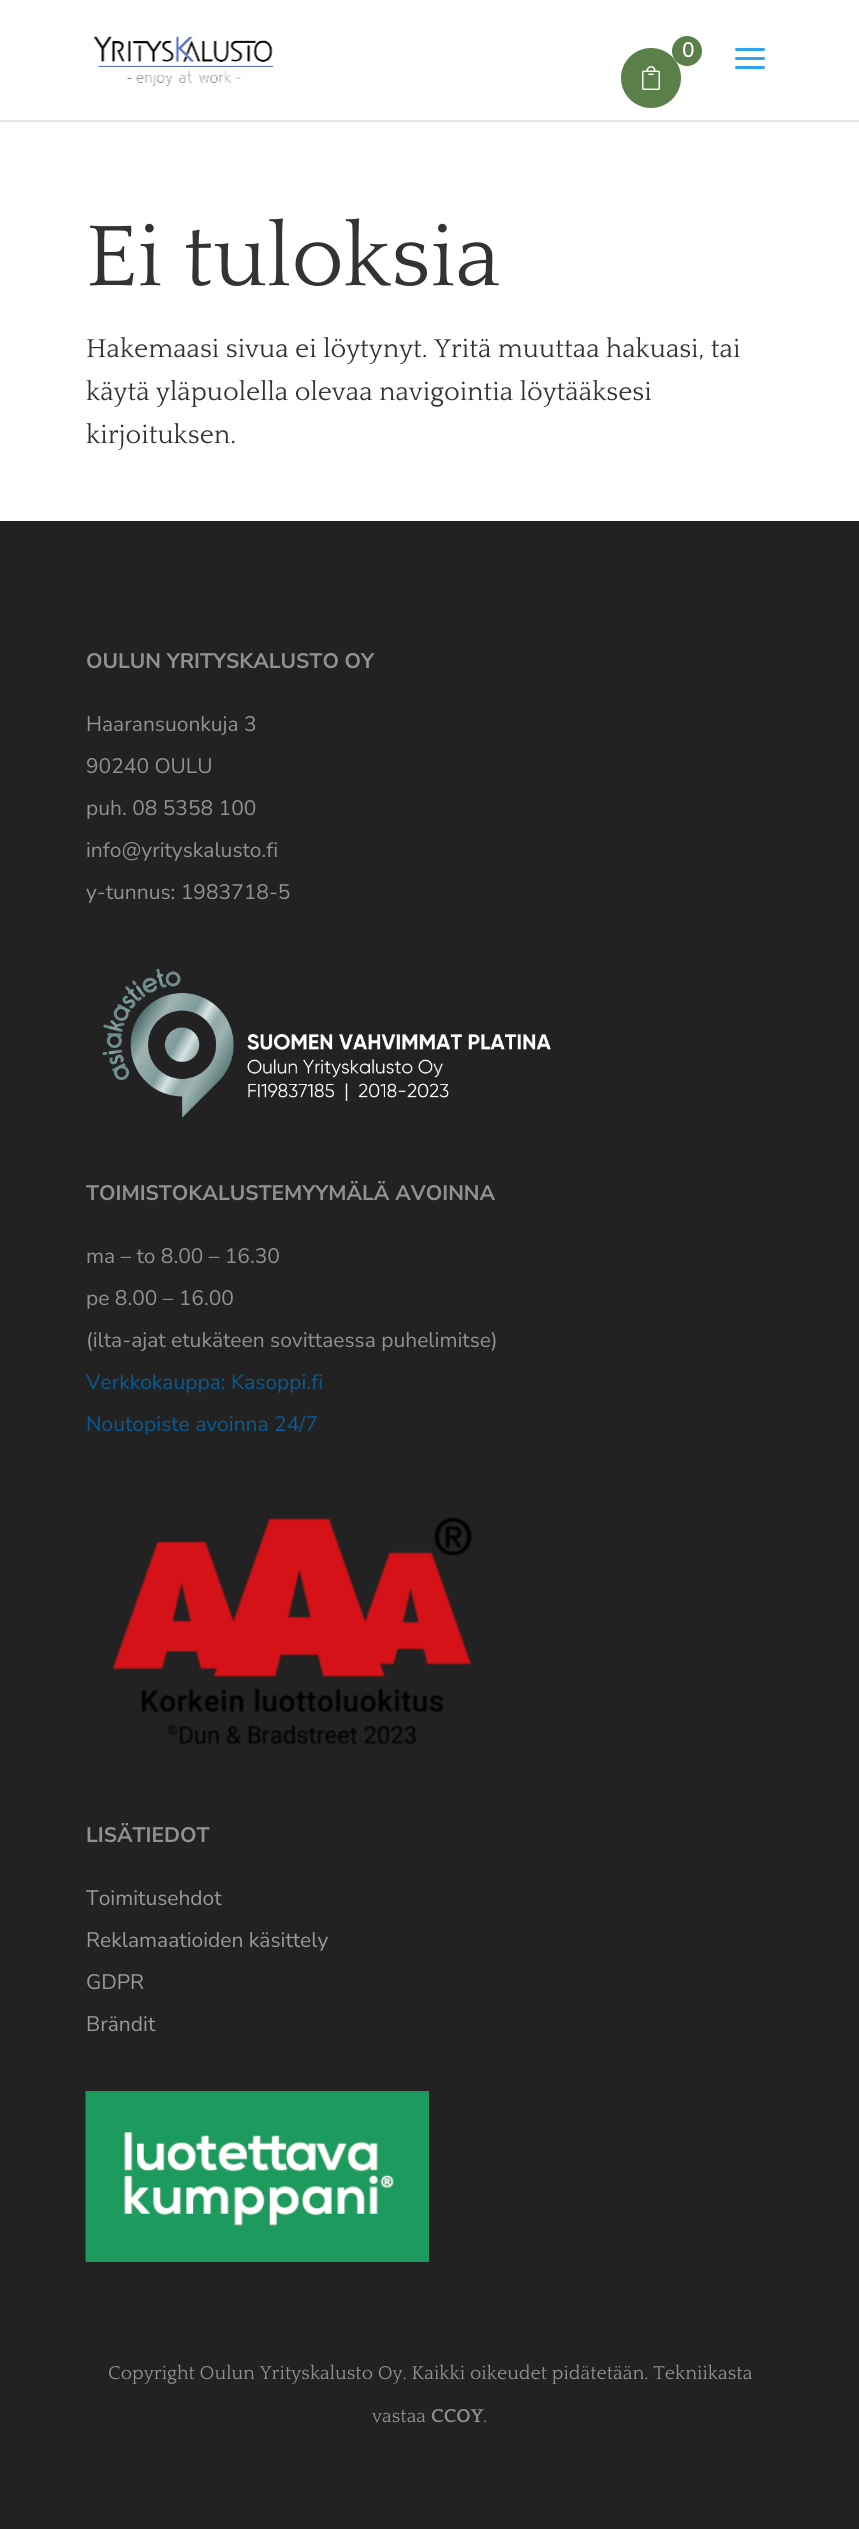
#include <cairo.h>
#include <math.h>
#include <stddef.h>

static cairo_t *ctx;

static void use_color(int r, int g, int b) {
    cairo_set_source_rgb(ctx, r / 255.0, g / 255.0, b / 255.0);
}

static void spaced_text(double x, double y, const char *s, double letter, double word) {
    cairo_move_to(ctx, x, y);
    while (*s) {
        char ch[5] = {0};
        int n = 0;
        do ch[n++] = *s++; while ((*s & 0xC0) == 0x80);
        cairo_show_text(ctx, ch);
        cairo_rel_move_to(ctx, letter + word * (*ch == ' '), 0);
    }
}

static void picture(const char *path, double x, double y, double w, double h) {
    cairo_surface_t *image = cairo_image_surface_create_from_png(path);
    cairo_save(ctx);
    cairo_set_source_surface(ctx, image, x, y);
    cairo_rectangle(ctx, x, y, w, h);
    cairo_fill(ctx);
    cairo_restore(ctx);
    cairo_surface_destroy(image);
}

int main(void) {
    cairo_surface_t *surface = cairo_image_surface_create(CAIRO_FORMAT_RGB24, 859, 2529);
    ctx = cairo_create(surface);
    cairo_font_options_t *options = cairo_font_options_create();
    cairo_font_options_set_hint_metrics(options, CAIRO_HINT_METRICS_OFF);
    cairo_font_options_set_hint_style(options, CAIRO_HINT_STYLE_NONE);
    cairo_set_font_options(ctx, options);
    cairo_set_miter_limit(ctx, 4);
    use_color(255, 255, 255);
    cairo_paint(ctx);
    use_color(230, 230, 230);
    cairo_new_path(ctx);
    cairo_move_to(ctx, 0, 120);
    cairo_line_to(ctx, 0, 122);
    cairo_line_to(ctx, 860, 122);
    cairo_line_to(ctx, 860, 2);
    cairo_line_to(ctx, 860, 120);
    cairo_close_path(ctx);
    cairo_fill(ctx);
    picture("img1.png", 93, 36, 181, 50);
    use_color(90, 127, 72);
    cairo_arc(ctx, 651, 78, 30, 0, 2 * M_PI);
    cairo_fill(ctx);
    cairo_arc(ctx, 687, 51, 15, 0, 2 * M_PI);
    cairo_fill(ctx);
    cairo_select_font_face(ctx, "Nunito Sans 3 ExtraLight", CAIRO_FONT_SLANT_NORMAL, CAIRO_FONT_WEIGHT_NORMAL);
    cairo_set_font_size(ctx, 21);
    use_color(255, 255, 255);
    spaced_text(682, 57, "0", -3, 0);
    picture("img2.png", 642, 66, 18, 24);
    picture("img3.png", 735, 48, 30, 21);
    cairo_select_font_face(ctx, "Quattrocento", CAIRO_FONT_SLANT_NORMAL, CAIRO_FONT_WEIGHT_NORMAL);
    cairo_set_font_size(ctx, 90);
    use_color(51, 51, 51);
    cairo_move_to(ctx, 86, 285);
    cairo_show_text(ctx, "Ei tuloksia");
    cairo_set_font_size(ctx, 27);
    cairo_move_to(ctx, 86, 357);
    cairo_show_text(ctx, "Hakemaasi sivua ei löytynyt. Yritä muuttaa hakuasi, tai");
    cairo_move_to(ctx, 86, 400);
    cairo_show_text(ctx, "käytä yläpuolella olevaa navigointia löytääksesi");
    cairo_move_to(ctx, 86, 443);
    cairo_show_text(ctx, "kirjoituksen.");
    use_color(34, 34, 34);
    cairo_rectangle(ctx, 0, 521, 859, 2008);
    cairo_fill(ctx);
    cairo_select_font_face(ctx, "Nunito Sans ExtraLight", CAIRO_FONT_SLANT_NORMAL, CAIRO_FONT_WEIGHT_NORMAL);
    cairo_set_font_size(ctx, 21);
    use_color(145, 145, 145);
    cairo_move_to(ctx, 86, 668);
    cairo_show_text(ctx, "OULUN YRITYSKALUSTO OY");
    cairo_select_font_face(ctx, "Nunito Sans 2 ExtraLight", CAIRO_FONT_SLANT_NORMAL, CAIRO_FONT_WEIGHT_NORMAL);
    cairo_move_to(ctx, 86, 731);
    cairo_show_text(ctx, "Haaransuonkuja 3");
    cairo_move_to(ctx, 86, 773);
    cairo_show_text(ctx, "90240 OULU");
    cairo_move_to(ctx, 86, 815);
    cairo_show_text(ctx, "puh. 08 5358 100");
    cairo_move_to(ctx, 86, 857);
    cairo_show_text(ctx, "info@yrityskalusto.fi");
    cairo_move_to(ctx, 86, 899);
    cairo_show_text(ctx, "y-tunnus: 1983718-5");
    picture("img4.png", 102, 968, 449, 150);
    cairo_select_font_face(ctx, "Nunito Sans ExtraLight", CAIRO_FONT_SLANT_NORMAL, CAIRO_FONT_WEIGHT_NORMAL);
    cairo_move_to(ctx, 86, 1200);
    cairo_show_text(ctx, "TOIMISTOKALUSTEMYYMÄLÄ AVOINNA");
    cairo_select_font_face(ctx, "Nunito Sans 2 ExtraLight", CAIRO_FONT_SLANT_NORMAL, CAIRO_FONT_WEIGHT_NORMAL);
    cairo_move_to(ctx, 86, 1263);
    cairo_show_text(ctx, "ma – to 8.00 – 16.30");
    cairo_move_to(ctx, 86, 1305);
    cairo_show_text(ctx, "pe 8.00 – 16.00");
    cairo_move_to(ctx, 86, 1347);
    cairo_show_text(ctx, "(ilta-ajat etukäteen sovittaessa puhelimitse)");
    use_color(7, 90, 146);
    cairo_move_to(ctx, 86, 1389);
    cairo_show_text(ctx, "Verkkokauppa: Kasoppi.fi");
    cairo_move_to(ctx, 86, 1431);
    cairo_show_text(ctx, "Noutopiste avoinna 24/7");
    picture("img5.png", 112, 1517, 360, 227);
    cairo_select_font_face(ctx, "Nunito Sans ExtraLight", CAIRO_FONT_SLANT_NORMAL, CAIRO_FONT_WEIGHT_NORMAL);
    use_color(145, 145, 145);
    cairo_move_to(ctx, 86, 1842);
    cairo_show_text(ctx, "LISÄTIEDOT");
    cairo_select_font_face(ctx, "Nunito Sans 2 ExtraLight", CAIRO_FONT_SLANT_NORMAL, CAIRO_FONT_WEIGHT_NORMAL);
    use_color(153, 153, 153);
    cairo_move_to(ctx, 86, 1905);
    cairo_show_text(ctx, "Toimitusehdot");
    cairo_move_to(ctx, 86, 1947);
    cairo_show_text(ctx, "Reklamaatioiden käsittely");
    cairo_move_to(ctx, 86, 1989);
    cairo_show_text(ctx, "GDPR");
    cairo_move_to(ctx, 86, 2031);
    cairo_show_text(ctx, "Brändit");
    picture("img6.png", 85, 2091, 344, 171);
    cairo_select_font_face(ctx, "Quattrocento", CAIRO_FONT_SLANT_NORMAL, CAIRO_FONT_WEIGHT_NORMAL);
    cairo_set_font_size(ctx, 19.5);
    use_color(145, 145, 145);
    cairo_move_to(ctx, 108, 2379);
    cairo_show_text(ctx, "Copyright Oulun Yrityskalusto Oy. Kaikki oikeudet pidätetään. Tekniikasta");
    cairo_move_to(ctx, 372, 2422);
    cairo_show_text(ctx, "vastaa");
    cairo_select_font_face(ctx, "Quattrocento", CAIRO_FONT_SLANT_NORMAL, CAIRO_FONT_WEIGHT_BOLD);
    cairo_move_to(ctx, 431, 2422);
    cairo_show_text(ctx, "CCOY");
    cairo_select_font_face(ctx, "Quattrocento", CAIRO_FONT_SLANT_NORMAL, CAIRO_FONT_WEIGHT_NORMAL);
    cairo_move_to(ctx, 483, 2422);
    cairo_show_text(ctx, ".");
    cairo_surface_write_to_png(surface, "result.png");
    cairo_font_options_destroy(options);
    cairo_destroy(ctx);
    cairo_surface_destroy(surface);
    return 0;
}
